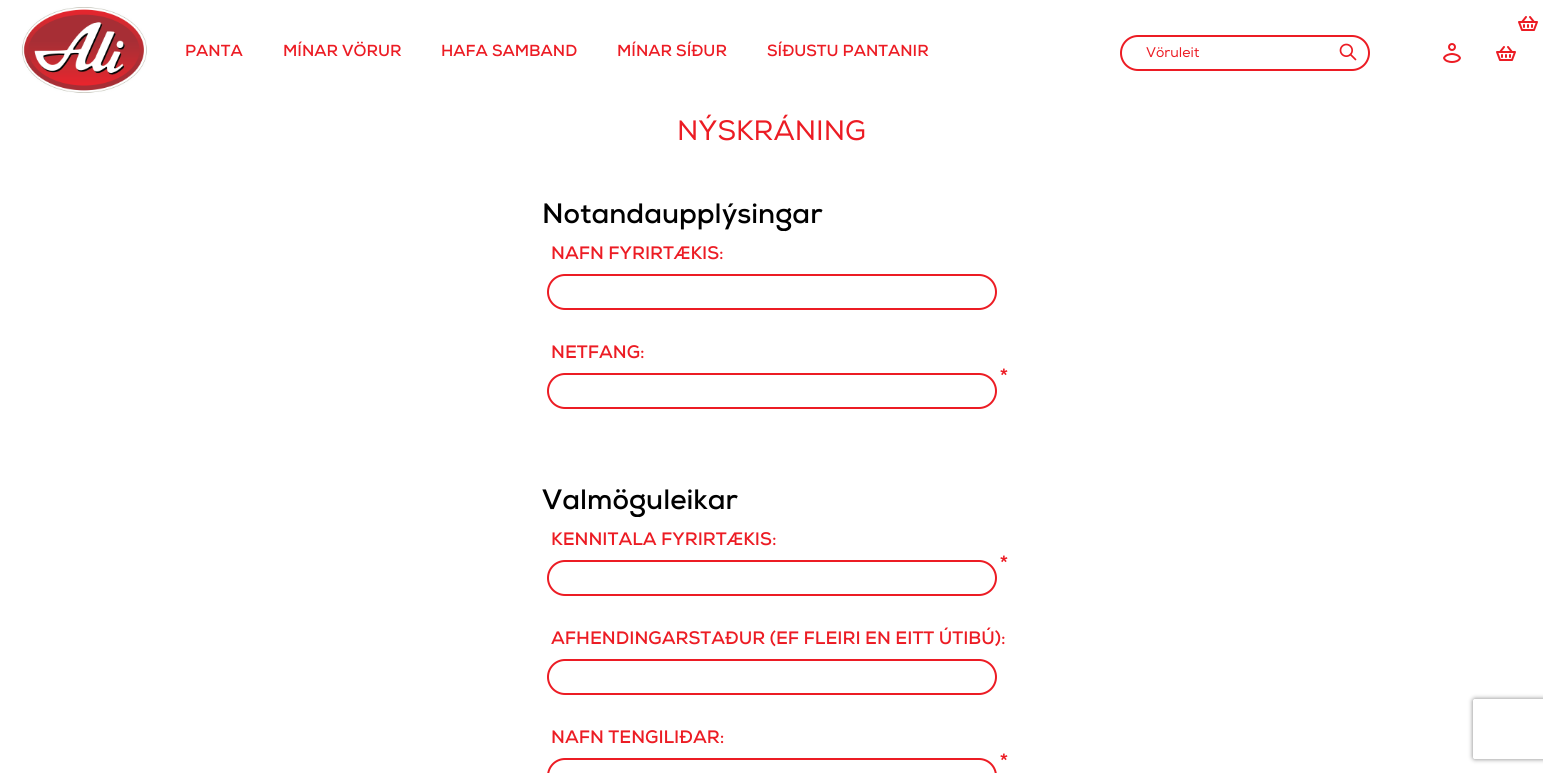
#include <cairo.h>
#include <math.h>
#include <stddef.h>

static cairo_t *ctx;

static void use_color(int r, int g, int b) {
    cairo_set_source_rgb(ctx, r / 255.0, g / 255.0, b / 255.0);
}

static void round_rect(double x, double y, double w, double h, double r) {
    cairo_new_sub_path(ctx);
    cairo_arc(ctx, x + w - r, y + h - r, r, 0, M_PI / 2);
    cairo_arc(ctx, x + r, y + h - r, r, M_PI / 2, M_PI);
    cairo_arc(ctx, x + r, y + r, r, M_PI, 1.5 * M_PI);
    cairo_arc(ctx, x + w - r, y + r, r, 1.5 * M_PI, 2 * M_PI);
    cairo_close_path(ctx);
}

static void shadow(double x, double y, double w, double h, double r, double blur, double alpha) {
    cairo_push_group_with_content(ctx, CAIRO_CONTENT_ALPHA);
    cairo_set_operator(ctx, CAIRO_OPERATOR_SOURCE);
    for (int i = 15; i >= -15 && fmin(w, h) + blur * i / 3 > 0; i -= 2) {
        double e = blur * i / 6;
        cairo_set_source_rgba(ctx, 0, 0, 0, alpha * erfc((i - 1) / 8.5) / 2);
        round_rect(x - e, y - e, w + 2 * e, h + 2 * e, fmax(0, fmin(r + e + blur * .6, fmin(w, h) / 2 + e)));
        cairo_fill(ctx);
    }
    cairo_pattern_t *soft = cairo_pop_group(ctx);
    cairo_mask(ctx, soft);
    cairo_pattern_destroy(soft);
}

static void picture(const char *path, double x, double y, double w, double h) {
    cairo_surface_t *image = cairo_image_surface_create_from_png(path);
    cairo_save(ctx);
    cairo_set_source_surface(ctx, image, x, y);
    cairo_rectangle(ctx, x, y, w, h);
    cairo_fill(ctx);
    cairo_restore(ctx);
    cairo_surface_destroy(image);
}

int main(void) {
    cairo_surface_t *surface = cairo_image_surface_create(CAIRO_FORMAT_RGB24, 1543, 773);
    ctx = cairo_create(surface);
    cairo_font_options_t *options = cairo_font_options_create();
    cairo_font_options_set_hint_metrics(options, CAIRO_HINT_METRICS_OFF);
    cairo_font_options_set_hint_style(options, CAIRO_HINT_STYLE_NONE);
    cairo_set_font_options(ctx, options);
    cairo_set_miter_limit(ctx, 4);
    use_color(255, 255, 255);
    cairo_paint(ctx);
    picture("img1.png", 21, 7, 126, 86);
    cairo_select_font_face(ctx, "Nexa", CAIRO_FONT_SLANT_NORMAL, CAIRO_FONT_WEIGHT_BOLD);
    cairo_set_font_size(ctx, 16);
    use_color(236, 28, 36);
    cairo_move_to(ctx, 185, 56);
    cairo_show_text(ctx, "PANTA");
    cairo_move_to(ctx, 283, 56);
    cairo_show_text(ctx, "MÍNAR VÖRUR");
    cairo_move_to(ctx, 441, 56);
    cairo_show_text(ctx, "HAFA SAMBAND");
    cairo_move_to(ctx, 617, 56);
    cairo_show_text(ctx, "MÍNAR SÍÐUR");
    cairo_move_to(ctx, 767, 56);
    cairo_show_text(ctx, "SÍÐUSTU PANTANIR");
    round_rect(1121, 36, 248, 34, 17);
    cairo_stroke(ctx);
    cairo_select_font_face(ctx, "Nexa", CAIRO_FONT_SLANT_NORMAL, CAIRO_FONT_WEIGHT_NORMAL);
    cairo_set_font_size(ctx, 14);
    cairo_move_to(ctx, 1146, 57);
    cairo_show_text(ctx, "Vöruleit");
    picture("img2.png", 1339, 43, 18, 18);
    picture("img3.png", 1443, 43, 18, 20);
    picture("img4.png", 1496, 46, 20, 15);
    picture("img4.png", 1518, 16, 20, 15);
    cairo_set_font_size(ctx, 28);
    cairo_move_to(ctx, 677, 140);
    cairo_show_text(ctx, "NÝSKRÁNING");
    cairo_select_font_face(ctx, "Nexa", CAIRO_FONT_SLANT_NORMAL, CAIRO_FONT_WEIGHT_BOLD);
    use_color(0, 0, 0);
    cairo_move_to(ctx, 542, 223);
    cairo_show_text(ctx, "Notandaupplýsingar");
    use_color(255, 255, 255);
    cairo_rectangle(ctx, 781, 231, 4, 1);
    cairo_fill(ctx);
    cairo_set_font_size(ctx, 18);
    use_color(236, 28, 36);
    cairo_move_to(ctx, 551, 259);
    cairo_show_text(ctx, "NAFN FYRIRTÆKIS:");
    round_rect(548, 275, 448, 34, 17);
    cairo_stroke(ctx);
    cairo_move_to(ctx, 551, 358);
    cairo_show_text(ctx, "NETFANG:");
    cairo_select_font_face(ctx, "Nexa", CAIRO_FONT_SLANT_NORMAL, CAIRO_FONT_WEIGHT_NORMAL);
    cairo_set_font_size(ctx, 26);
    cairo_move_to(ctx, 999, 387);
    cairo_show_text(ctx, "*");
    round_rect(548, 374, 448, 34, 17);
    cairo_stroke(ctx);
    cairo_select_font_face(ctx, "Nexa", CAIRO_FONT_SLANT_NORMAL, CAIRO_FONT_WEIGHT_BOLD);
    cairo_set_font_size(ctx, 28);
    use_color(0, 0, 0);
    cairo_move_to(ctx, 542, 509);
    cairo_show_text(ctx, "Valmöguleikar");
    use_color(255, 255, 255);
    cairo_rectangle(ctx, 635, 517, 4, 1);
    cairo_fill(ctx);
    cairo_set_font_size(ctx, 18);
    use_color(236, 28, 36);
    cairo_move_to(ctx, 551, 545);
    cairo_show_text(ctx, "KENNITALA FYRIRTÆKIS:");
    cairo_select_font_face(ctx, "Nexa", CAIRO_FONT_SLANT_NORMAL, CAIRO_FONT_WEIGHT_NORMAL);
    cairo_set_font_size(ctx, 26);
    cairo_move_to(ctx, 999, 574);
    cairo_show_text(ctx, "*");
    round_rect(548, 561, 448, 34, 17);
    cairo_stroke(ctx);
    cairo_select_font_face(ctx, "Nexa", CAIRO_FONT_SLANT_NORMAL, CAIRO_FONT_WEIGHT_BOLD);
    cairo_set_font_size(ctx, 18);
    cairo_move_to(ctx, 551, 644);
    cairo_show_text(ctx, "AFHENDINGARSTAÐUR (EF FLEIRI EN EITT ÚTIBÚ):");
    round_rect(548, 660, 448, 34, 17);
    cairo_stroke(ctx);
    cairo_move_to(ctx, 551, 743);
    cairo_show_text(ctx, "NAFN TENGILIÐAR:");
    cairo_select_font_face(ctx, "Nexa", CAIRO_FONT_SLANT_NORMAL, CAIRO_FONT_WEIGHT_NORMAL);
    cairo_set_font_size(ctx, 26);
    cairo_move_to(ctx, 999, 772);
    cairo_show_text(ctx, "*");
    round_rect(548, 759, 448, 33, 17);
    cairo_stroke(ctx);
    cairo_save(ctx);
    cairo_set_fill_rule(ctx, CAIRO_FILL_RULE_EVEN_ODD);
    cairo_new_path(ctx);
    cairo_move_to(ctx, 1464, 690);
    cairo_line_to(ctx, 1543, 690);
    cairo_line_to(ctx, 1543, 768);
    cairo_line_to(ctx, 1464, 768);
    cairo_close_path(ctx);
    cairo_move_to(ctx, 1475, 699);
    cairo_line_to(ctx, 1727, 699);
    cairo_curve_to(ctx, 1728, 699, 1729, 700, 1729, 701);
    cairo_line_to(ctx, 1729, 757);
    cairo_curve_to(ctx, 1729, 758, 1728, 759, 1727, 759);
    cairo_line_to(ctx, 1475, 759);
    cairo_curve_to(ctx, 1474, 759, 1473, 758, 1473, 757);
    cairo_line_to(ctx, 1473, 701);
    cairo_curve_to(ctx, 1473, 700, 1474, 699, 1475, 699);
    cairo_close_path(ctx);
    cairo_clip(ctx);
    use_color(128, 128, 128);
    shadow(1473, 699, 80, 60, 2, 2.5, 1);
    cairo_restore(ctx);
    cairo_surface_write_to_png(surface, "result.png");
    cairo_font_options_destroy(options);
    cairo_destroy(ctx);
    cairo_surface_destroy(surface);
    return 0;
}
